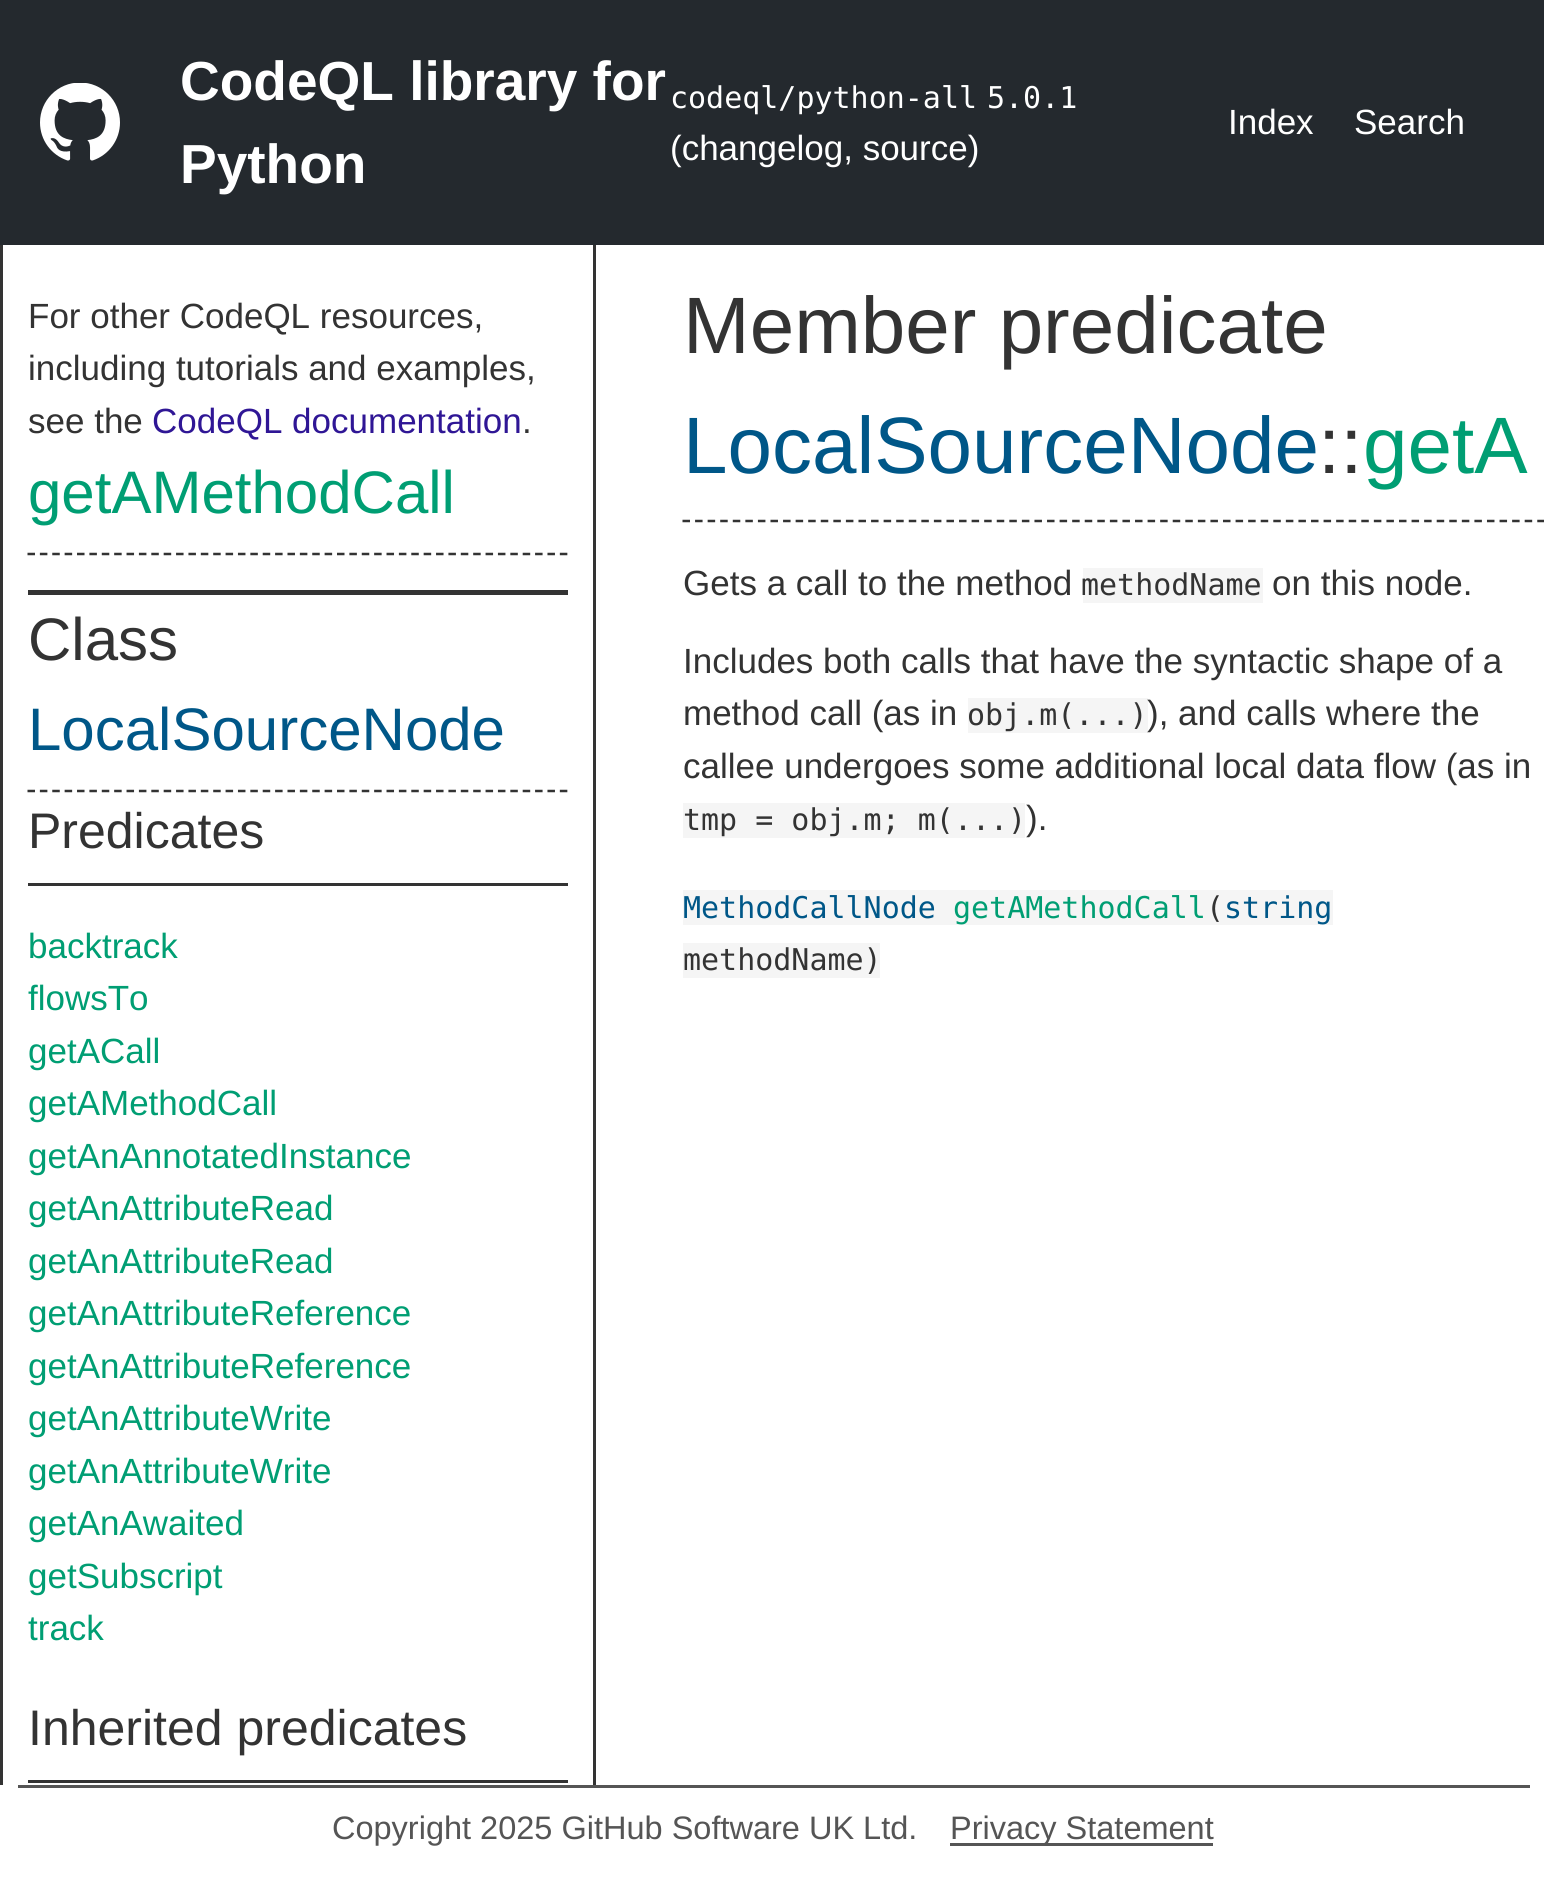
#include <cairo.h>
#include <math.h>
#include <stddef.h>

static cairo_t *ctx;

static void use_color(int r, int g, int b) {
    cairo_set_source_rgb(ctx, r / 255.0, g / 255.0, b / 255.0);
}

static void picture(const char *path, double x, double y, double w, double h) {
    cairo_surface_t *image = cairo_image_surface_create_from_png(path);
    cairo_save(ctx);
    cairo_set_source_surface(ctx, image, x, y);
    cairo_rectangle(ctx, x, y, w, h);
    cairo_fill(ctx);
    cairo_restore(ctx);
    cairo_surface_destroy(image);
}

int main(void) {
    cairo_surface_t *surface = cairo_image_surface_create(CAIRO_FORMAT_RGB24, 1544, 1883);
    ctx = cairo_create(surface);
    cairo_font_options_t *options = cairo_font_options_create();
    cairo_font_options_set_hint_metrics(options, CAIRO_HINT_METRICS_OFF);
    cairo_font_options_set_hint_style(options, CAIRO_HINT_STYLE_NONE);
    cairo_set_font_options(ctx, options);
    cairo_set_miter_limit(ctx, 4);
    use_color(255, 255, 255);
    cairo_paint(ctx);
    use_color(36, 41, 46);
    cairo_rectangle(ctx, 0, 0, 1544, 245);
    cairo_fill(ctx);
    picture("img1.png", 40, 83, 80, 78);
    cairo_select_font_face(ctx, "Liberation Sans", CAIRO_FONT_SLANT_NORMAL, CAIRO_FONT_WEIGHT_BOLD);
    cairo_set_font_size(ctx, 55);
    use_color(255, 255, 255);
    cairo_move_to(ctx, 180, 100);
    cairo_show_text(ctx, "CodeQL library for");
    cairo_move_to(ctx, 180, 183);
    cairo_show_text(ctx, "Python");
    cairo_select_font_face(ctx, "DejaVu Sans Mono", CAIRO_FONT_SLANT_NORMAL, CAIRO_FONT_WEIGHT_NORMAL);
    cairo_set_font_size(ctx, 30);
    cairo_move_to(ctx, 670, 108);
    cairo_show_text(ctx, "codeql/python-all");
    cairo_move_to(ctx, 987, 108);
    cairo_show_text(ctx, "5.0.1");
    cairo_select_font_face(ctx, "Liberation Sans", CAIRO_FONT_SLANT_NORMAL, CAIRO_FONT_WEIGHT_NORMAL);
    cairo_set_font_size(ctx, 35);
    cairo_move_to(ctx, 670, 160);
    cairo_show_text(ctx, "(changelog, source)");
    cairo_move_to(ctx, 1228, 134);
    cairo_show_text(ctx, "Index");
    cairo_move_to(ctx, 1354, 134);
    cairo_show_text(ctx, "Search");
    use_color(51, 51, 51);
    cairo_rectangle(ctx, 593, 245, 3, 1540);
    cairo_fill(ctx);
    cairo_rectangle(ctx, 0, 245, 3, 1540);
    cairo_fill(ctx);
    cairo_rectangle(ctx, 28, 590, 540, 5);
    cairo_fill(ctx);
    cairo_move_to(ctx, 28, 328);
    cairo_show_text(ctx, "For other CodeQL resources,");
    cairo_move_to(ctx, 28, 380);
    cairo_show_text(ctx, "including tutorials and examples,");
    cairo_move_to(ctx, 28, 433);
    cairo_show_text(ctx, "see the");
    use_color(47, 22, 149);
    cairo_move_to(ctx, 152, 433);
    cairo_show_text(ctx, "CodeQL documentation");
    use_color(51, 51, 51);
    cairo_move_to(ctx, 522, 433);
    cairo_show_text(ctx, ".");
    cairo_new_path(ctx);
    cairo_move_to(ctx, 27.5, 554);
    cairo_line_to(ctx, 567.5, 554);
    cairo_set_line_width(ctx, 2.5);
    cairo_set_dash(ctx, (double[]){7.5, 4.88}, 2, 0);
    cairo_stroke(ctx);
    cairo_set_font_size(ctx, 60);
    use_color(0, 158, 115);
    cairo_move_to(ctx, 28, 513);
    cairo_show_text(ctx, "getAMethodCall");
    cairo_new_path(ctx);
    cairo_move_to(ctx, 27.5, 791);
    cairo_line_to(ctx, 567.5, 791);
    use_color(51, 51, 51);
    cairo_stroke(ctx);
    cairo_move_to(ctx, 28, 660);
    cairo_show_text(ctx, "Class");
    use_color(0, 87, 136);
    cairo_move_to(ctx, 28, 750);
    cairo_show_text(ctx, "LocalSourceNode");
    use_color(51, 51, 51);
    cairo_rectangle(ctx, 28, 883, 540, 3);
    cairo_fill(ctx);
    cairo_set_font_size(ctx, 50);
    cairo_move_to(ctx, 28, 848);
    cairo_show_text(ctx, "Predicates");
    cairo_set_font_size(ctx, 35);
    use_color(0, 158, 115);
    cairo_move_to(ctx, 28, 958);
    cairo_show_text(ctx, "backtrack");
    cairo_move_to(ctx, 28, 1010);
    cairo_show_text(ctx, "flowsTo");
    cairo_move_to(ctx, 28, 1063);
    cairo_show_text(ctx, "getACall");
    cairo_move_to(ctx, 28, 1115);
    cairo_show_text(ctx, "getAMethodCall");
    cairo_move_to(ctx, 28, 1168);
    cairo_show_text(ctx, "getAnAnnotatedInstance");
    cairo_move_to(ctx, 28, 1220);
    cairo_show_text(ctx, "getAnAttributeRead");
    cairo_move_to(ctx, 28, 1273);
    cairo_show_text(ctx, "getAnAttributeRead");
    cairo_move_to(ctx, 28, 1325);
    cairo_show_text(ctx, "getAnAttributeReference");
    cairo_move_to(ctx, 28, 1378);
    cairo_show_text(ctx, "getAnAttributeReference");
    cairo_move_to(ctx, 28, 1430);
    cairo_show_text(ctx, "getAnAttributeWrite");
    cairo_move_to(ctx, 28, 1483);
    cairo_show_text(ctx, "getAnAttributeWrite");
    cairo_move_to(ctx, 28, 1535);
    cairo_show_text(ctx, "getAnAwaited");
    cairo_move_to(ctx, 28, 1588);
    cairo_show_text(ctx, "getSubscript");
    cairo_move_to(ctx, 28, 1640);
    cairo_show_text(ctx, "track");
    use_color(51, 51, 51);
    cairo_rectangle(ctx, 28, 1780, 540, 3);
    cairo_fill(ctx);
    cairo_set_font_size(ctx, 50);
    cairo_move_to(ctx, 28, 1745);
    cairo_show_text(ctx, "Inherited predicates");
    cairo_new_path(ctx);
    cairo_move_to(ctx, 682.5, 521);
    cairo_line_to(ctx, 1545, 521);
    cairo_set_dash(ctx, (double[]){7.5, 5.07}, 2, 0);
    cairo_stroke(ctx);
    cairo_set_font_size(ctx, 80);
    cairo_move_to(ctx, 683, 353);
    cairo_show_text(ctx, "Member predicate");
    use_color(0, 87, 136);
    cairo_move_to(ctx, 683, 473);
    cairo_show_text(ctx, "LocalSourceNode");
    use_color(51, 51, 51);
    cairo_move_to(ctx, 1318, 473);
    cairo_show_text(ctx, "::");
    use_color(0, 158, 115);
    cairo_move_to(ctx, 1363, 473);
    cairo_show_text(ctx, "getA");
    cairo_set_font_size(ctx, 35);
    use_color(51, 51, 51);
    cairo_move_to(ctx, 683, 595);
    cairo_show_text(ctx, "Gets a call to the method");
    use_color(245, 245, 245);
    cairo_rectangle(ctx, 1083, 568, 180, 35);
    cairo_fill(ctx);
    cairo_select_font_face(ctx, "DejaVu Sans Mono", CAIRO_FONT_SLANT_NORMAL, CAIRO_FONT_WEIGHT_NORMAL);
    cairo_set_font_size(ctx, 30);
    use_color(51, 51, 51);
    cairo_move_to(ctx, 1081, 595);
    cairo_show_text(ctx, "methodName");
    cairo_select_font_face(ctx, "Liberation Sans", CAIRO_FONT_SLANT_NORMAL, CAIRO_FONT_WEIGHT_NORMAL);
    cairo_set_font_size(ctx, 35);
    cairo_move_to(ctx, 1272, 595);
    cairo_show_text(ctx, "on this node.");
    cairo_move_to(ctx, 683, 673);
    cairo_show_text(ctx, "Includes both calls that have the syntactic shape of a");
    cairo_move_to(ctx, 683, 725);
    cairo_show_text(ctx, "method call (as in");
    use_color(245, 245, 245);
    cairo_rectangle(ctx, 968, 698, 180, 35);
    cairo_fill(ctx);
    cairo_select_font_face(ctx, "DejaVu Sans Mono", CAIRO_FONT_SLANT_NORMAL, CAIRO_FONT_WEIGHT_NORMAL);
    cairo_set_font_size(ctx, 30);
    use_color(51, 51, 51);
    cairo_move_to(ctx, 967, 725);
    cairo_show_text(ctx, "obj.m(...)");
    cairo_select_font_face(ctx, "Liberation Sans", CAIRO_FONT_SLANT_NORMAL, CAIRO_FONT_WEIGHT_NORMAL);
    cairo_set_font_size(ctx, 35);
    cairo_move_to(ctx, 1147, 725);
    cairo_show_text(ctx, "), and calls where the");
    cairo_move_to(ctx, 683, 778);
    cairo_show_text(ctx, "callee undergoes some additional local data flow (as in");
    use_color(245, 245, 245);
    cairo_rectangle(ctx, 683, 803, 342, 35);
    cairo_fill(ctx);
    cairo_select_font_face(ctx, "DejaVu Sans Mono", CAIRO_FONT_SLANT_NORMAL, CAIRO_FONT_WEIGHT_NORMAL);
    cairo_set_font_size(ctx, 30);
    use_color(51, 51, 51);
    cairo_move_to(ctx, 683, 830);
    cairo_show_text(ctx, "tmp = obj.m; m(...)");
    cairo_select_font_face(ctx, "Liberation Sans", CAIRO_FONT_SLANT_NORMAL, CAIRO_FONT_WEIGHT_NORMAL);
    cairo_set_font_size(ctx, 35);
    cairo_move_to(ctx, 1026, 830);
    cairo_show_text(ctx, ").");
    use_color(245, 245, 245);
    cairo_rectangle(ctx, 683, 890, 650, 35);
    cairo_fill(ctx);
    cairo_select_font_face(ctx, "DejaVu Sans Mono", CAIRO_FONT_SLANT_NORMAL, CAIRO_FONT_WEIGHT_NORMAL);
    cairo_set_font_size(ctx, 30);
    use_color(0, 87, 136);
    cairo_move_to(ctx, 683, 918);
    cairo_show_text(ctx, "MethodCallNode");
    use_color(0, 158, 115);
    cairo_move_to(ctx, 953, 918);
    cairo_show_text(ctx, "getAMethodCall");
    use_color(51, 51, 51);
    cairo_move_to(ctx, 1206, 918);
    cairo_show_text(ctx, "(");
    use_color(0, 87, 136);
    cairo_move_to(ctx, 1224, 918);
    cairo_show_text(ctx, "string");
    use_color(245, 245, 245);
    cairo_rectangle(ctx, 683, 943, 197, 35);
    cairo_fill(ctx);
    use_color(51, 51, 51);
    cairo_move_to(ctx, 683, 970);
    cairo_show_text(ctx, "methodName)");
    use_color(85, 85, 85);
    cairo_rectangle(ctx, 18, 1785, 1512, 3);
    cairo_fill(ctx);
    cairo_select_font_face(ctx, "Liberation Sans", CAIRO_FONT_SLANT_NORMAL, CAIRO_FONT_WEIGHT_NORMAL);
    cairo_set_font_size(ctx, 32.5);
    cairo_move_to(ctx, 332, 1839);
    cairo_show_text(ctx, "Copyright 2025 GitHub Software UK Ltd.");
    cairo_rectangle(ctx, 950, 1843, 263, 3);
    cairo_fill(ctx);
    cairo_move_to(ctx, 950, 1839);
    cairo_show_text(ctx, "Privacy Statement");
    cairo_surface_write_to_png(surface, "result.png");
    cairo_font_options_destroy(options);
    cairo_destroy(ctx);
    cairo_surface_destroy(surface);
    return 0;
}
